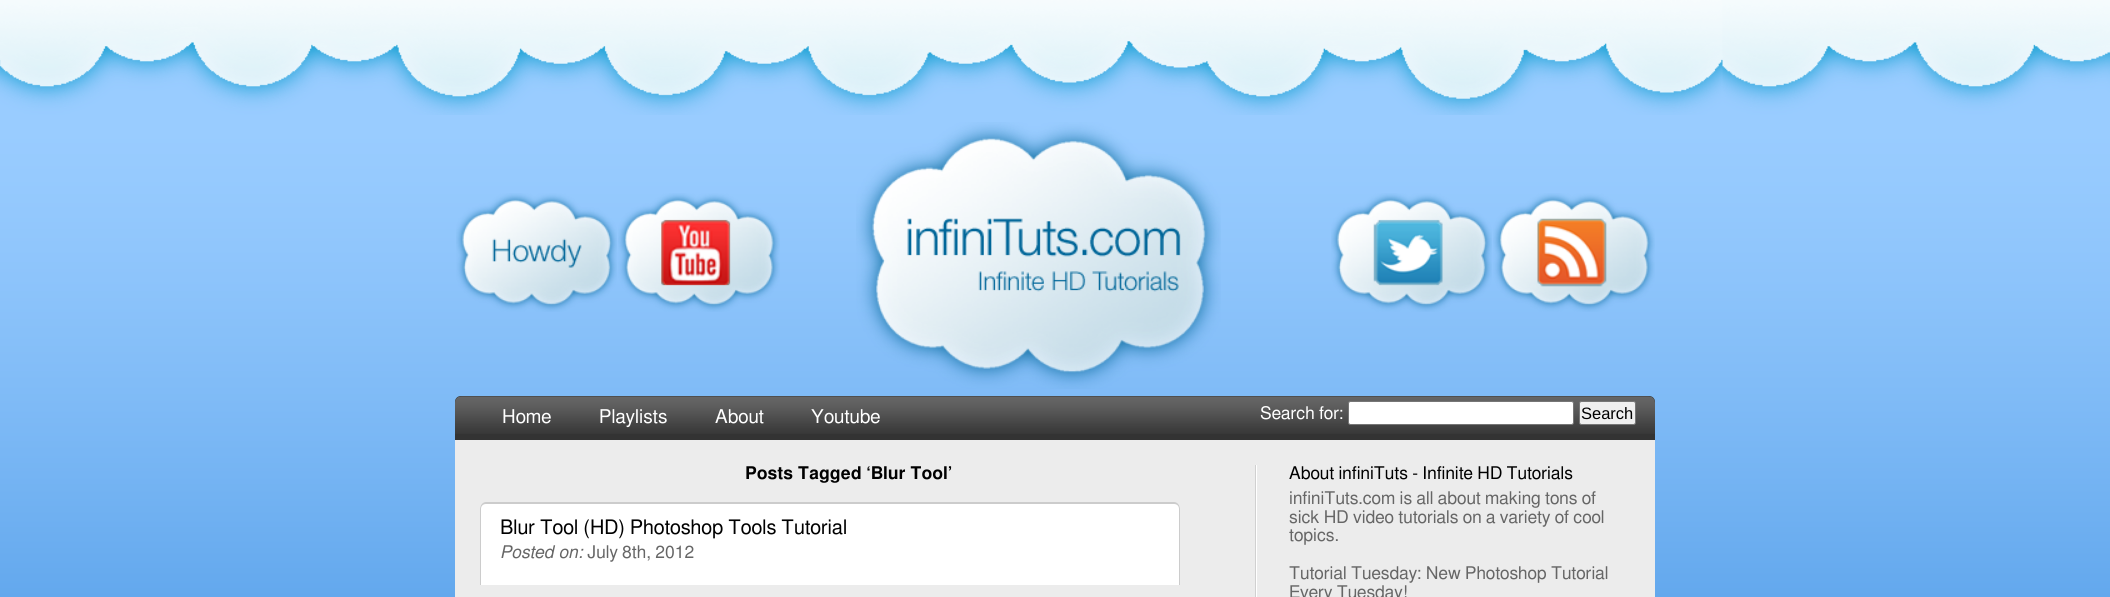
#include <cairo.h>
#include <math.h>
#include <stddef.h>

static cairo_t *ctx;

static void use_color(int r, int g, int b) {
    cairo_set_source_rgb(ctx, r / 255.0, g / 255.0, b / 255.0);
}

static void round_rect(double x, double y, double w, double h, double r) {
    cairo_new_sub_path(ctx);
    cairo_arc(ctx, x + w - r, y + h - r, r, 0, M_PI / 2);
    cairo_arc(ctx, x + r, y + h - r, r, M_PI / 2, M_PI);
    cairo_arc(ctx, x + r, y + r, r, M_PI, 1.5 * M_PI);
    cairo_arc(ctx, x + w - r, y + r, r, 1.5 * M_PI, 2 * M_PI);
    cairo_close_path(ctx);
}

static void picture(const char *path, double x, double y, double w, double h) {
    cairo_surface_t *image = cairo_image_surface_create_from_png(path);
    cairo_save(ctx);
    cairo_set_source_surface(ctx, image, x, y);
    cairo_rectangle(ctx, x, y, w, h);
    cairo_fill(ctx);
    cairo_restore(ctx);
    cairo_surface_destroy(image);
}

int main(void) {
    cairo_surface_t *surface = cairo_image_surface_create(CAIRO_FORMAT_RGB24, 2110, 597);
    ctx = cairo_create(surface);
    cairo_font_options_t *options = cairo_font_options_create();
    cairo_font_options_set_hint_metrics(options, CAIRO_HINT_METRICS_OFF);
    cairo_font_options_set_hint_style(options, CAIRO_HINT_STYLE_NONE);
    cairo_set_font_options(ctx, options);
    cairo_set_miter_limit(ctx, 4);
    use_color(153, 204, 255);
    cairo_paint(ctx);
    picture("img1.png", 0, 0, 2110, 115);
    picture("img2.png", 0, 115, 2110, 482);
    picture("img3.png", 456, 193, 161, 119);
    picture("img4.png", 618, 193, 162, 119);
    picture("img5.png", 856, 122, 365, 267);
    picture("img6.png", 1331, 193, 161, 119);
    picture("img7.png", 1493, 193, 162, 119);
    use_color(51, 51, 51);
    cairo_new_path(ctx);
    cairo_move_to(ctx, 461, 396);
    cairo_line_to(ctx, 1649, 396);
    cairo_curve_to(ctx, 1652.5, 396, 1655, 398.5, 1655, 402);
    cairo_line_to(ctx, 1655, 440);
    cairo_line_to(ctx, 455, 440);
    cairo_line_to(ctx, 455, 402);
    cairo_curve_to(ctx, 455, 398.5, 457.5, 396, 461, 396);
    cairo_close_path(ctx);
    cairo_fill(ctx);
    picture("img8.png", 455, 396, 1200, 38);
    cairo_select_font_face(ctx, "FreeSans", CAIRO_FONT_SLANT_NORMAL, CAIRO_FONT_WEIGHT_NORMAL);
    cairo_set_font_size(ctx, 19);
    use_color(255, 255, 255);
    cairo_move_to(ctx, 502, 423);
    cairo_show_text(ctx, "Home");
    cairo_move_to(ctx, 599, 423);
    cairo_show_text(ctx, "Playlists");
    cairo_move_to(ctx, 715, 423);
    cairo_show_text(ctx, "About");
    cairo_move_to(ctx, 811, 423);
    cairo_show_text(ctx, "Youtube");
    cairo_set_font_size(ctx, 17.5);
    cairo_move_to(ctx, 1260, 419);
    cairo_show_text(ctx, "Search for:");
    round_rect(1348.5, 401.5, 225, 23, 2);
    cairo_fill_preserve(ctx);
    use_color(118, 118, 118);
    cairo_set_line_width(ctx, 1);
    cairo_stroke(ctx);
    use_color(239, 239, 239);
    round_rect(1579.5, 401.5, 56, 23, 2);
    cairo_fill_preserve(ctx);
    use_color(118, 118, 118);
    cairo_stroke(ctx);
    cairo_select_font_face(ctx, "Liberation Sans", CAIRO_FONT_SLANT_NORMAL, CAIRO_FONT_WEIGHT_NORMAL);
    cairo_set_font_size(ctx, 16.5);
    use_color(0, 0, 0);
    cairo_move_to(ctx, 1581, 419);
    cairo_show_text(ctx, "Search");
    use_color(236, 236, 236);
    cairo_rectangle(ctx, 455, 440, 1200, 157);
    cairo_fill(ctx);
    cairo_select_font_face(ctx, "FreeSans SemiBold", CAIRO_FONT_SLANT_NORMAL, CAIRO_FONT_WEIGHT_NORMAL);
    cairo_set_font_size(ctx, 17.5);
    use_color(0, 0, 0);
    cairo_move_to(ctx, 745, 479);
    cairo_show_text(ctx, "Posts Tagged ‘Blur Tool’");
    use_color(255, 255, 255);
    cairo_new_path(ctx);
    cairo_move_to(ctx, 486, 503);
    cairo_line_to(ctx, 1174, 503);
    cairo_curve_to(ctx, 1177.5, 503, 1180, 505.5, 1180, 509);
    cairo_line_to(ctx, 1180, 585);
    cairo_line_to(ctx, 480, 585);
    cairo_line_to(ctx, 480, 509);
    cairo_curve_to(ctx, 480, 505.5, 482.5, 503, 486, 503);
    cairo_close_path(ctx);
    cairo_fill(ctx);
    use_color(204, 204, 204);
    cairo_set_fill_rule(ctx, CAIRO_FILL_RULE_EVEN_ODD);
    cairo_new_path(ctx);
    cairo_move_to(ctx, 486, 502);
    cairo_line_to(ctx, 1174, 502);
    cairo_curve_to(ctx, 1177, 502, 1180, 505, 1180, 509);
    cairo_line_to(ctx, 1180, 585);
    cairo_line_to(ctx, 480, 585);
    cairo_line_to(ctx, 480, 509);
    cairo_curve_to(ctx, 480, 505, 483, 502, 486, 502);
    cairo_close_path(ctx);
    cairo_move_to(ctx, 486, 504);
    cairo_line_to(ctx, 1174, 504);
    cairo_curve_to(ctx, 1177, 504, 1179, 506, 1179, 509);
    cairo_line_to(ctx, 1179, 585);
    cairo_line_to(ctx, 481, 585);
    cairo_line_to(ctx, 481, 509);
    cairo_curve_to(ctx, 481, 506, 483, 504, 486, 504);
    cairo_close_path(ctx);
    cairo_fill(ctx);
    cairo_select_font_face(ctx, "FreeSans", CAIRO_FONT_SLANT_NORMAL, CAIRO_FONT_WEIGHT_NORMAL);
    cairo_set_font_size(ctx, 20);
    use_color(0, 0, 0);
    cairo_move_to(ctx, 500, 534);
    cairo_show_text(ctx, "Blur Tool (HD) Photoshop Tools Tutorial");
    cairo_select_font_face(ctx, "FreeSans", CAIRO_FONT_SLANT_ITALIC, CAIRO_FONT_WEIGHT_NORMAL);
    cairo_set_font_size(ctx, 17.5);
    use_color(102, 102, 102);
    cairo_move_to(ctx, 500, 558);
    cairo_show_text(ctx, "Posted on:");
    cairo_select_font_face(ctx, "FreeSans", CAIRO_FONT_SLANT_NORMAL, CAIRO_FONT_WEIGHT_NORMAL);
    cairo_move_to(ctx, 587, 558);
    cairo_show_text(ctx, "July 8th, 2012");
    use_color(208, 208, 208);
    cairo_rectangle(ctx, 1255, 465, 1, 132);
    cairo_fill(ctx);
    use_color(255, 255, 255);
    cairo_rectangle(ctx, 1256, 465, 1, 132);
    cairo_fill(ctx);
    use_color(0, 0, 0);
    cairo_move_to(ctx, 1289, 479);
    cairo_show_text(ctx, "About infiniTuts - Infinite HD Tutorials");
    use_color(102, 102, 102);
    cairo_move_to(ctx, 1289, 504);
    cairo_show_text(ctx, "infiniTuts.com is all about making tons of");
    cairo_move_to(ctx, 1289, 523);
    cairo_show_text(ctx, "sick HD video tutorials on a variety of cool");
    cairo_move_to(ctx, 1289, 541);
    cairo_show_text(ctx, "topics.");
    cairo_move_to(ctx, 1289, 579);
    cairo_show_text(ctx, "Tutorial Tuesday: New Photoshop Tutorial");
    cairo_move_to(ctx, 1289, 598);
    cairo_show_text(ctx, "Every Tuesday!");
    cairo_surface_write_to_png(surface, "result.png");
    cairo_font_options_destroy(options);
    cairo_destroy(ctx);
    cairo_surface_destroy(surface);
    return 0;
}
